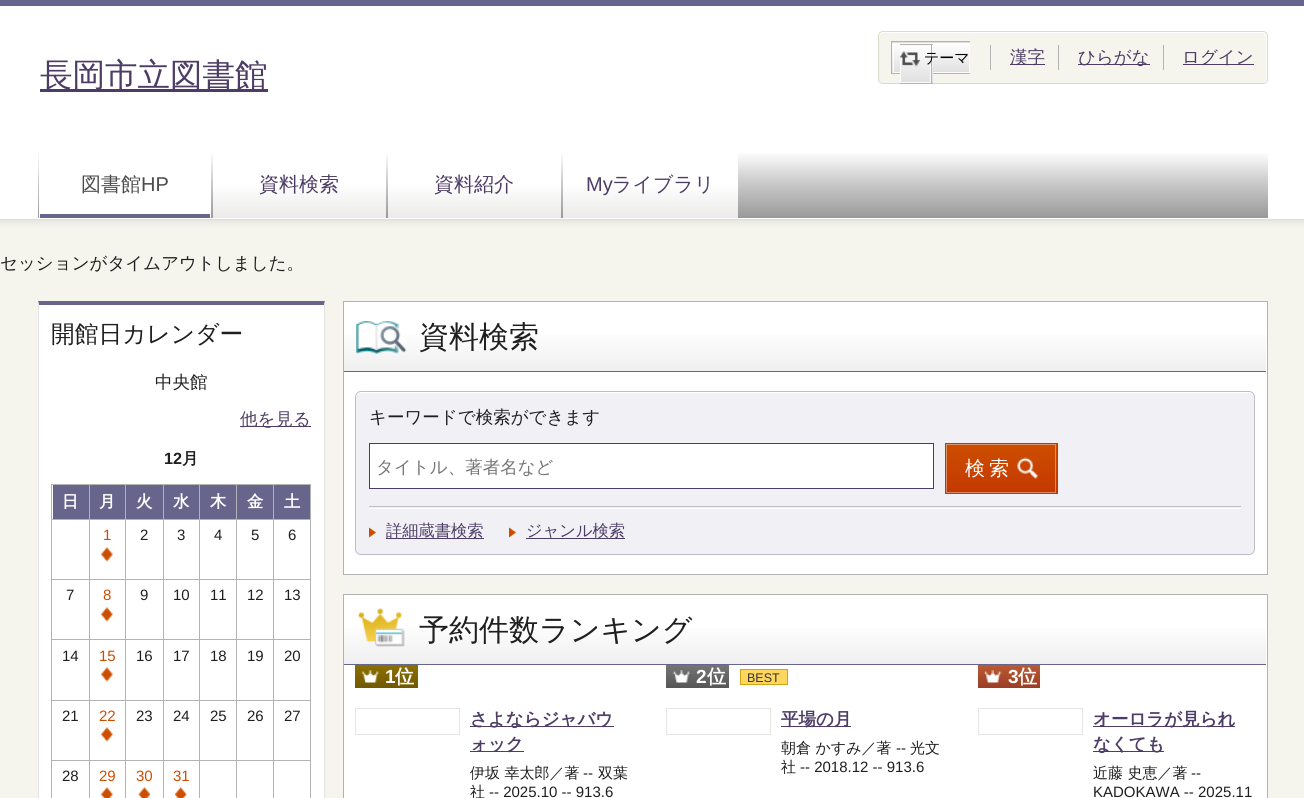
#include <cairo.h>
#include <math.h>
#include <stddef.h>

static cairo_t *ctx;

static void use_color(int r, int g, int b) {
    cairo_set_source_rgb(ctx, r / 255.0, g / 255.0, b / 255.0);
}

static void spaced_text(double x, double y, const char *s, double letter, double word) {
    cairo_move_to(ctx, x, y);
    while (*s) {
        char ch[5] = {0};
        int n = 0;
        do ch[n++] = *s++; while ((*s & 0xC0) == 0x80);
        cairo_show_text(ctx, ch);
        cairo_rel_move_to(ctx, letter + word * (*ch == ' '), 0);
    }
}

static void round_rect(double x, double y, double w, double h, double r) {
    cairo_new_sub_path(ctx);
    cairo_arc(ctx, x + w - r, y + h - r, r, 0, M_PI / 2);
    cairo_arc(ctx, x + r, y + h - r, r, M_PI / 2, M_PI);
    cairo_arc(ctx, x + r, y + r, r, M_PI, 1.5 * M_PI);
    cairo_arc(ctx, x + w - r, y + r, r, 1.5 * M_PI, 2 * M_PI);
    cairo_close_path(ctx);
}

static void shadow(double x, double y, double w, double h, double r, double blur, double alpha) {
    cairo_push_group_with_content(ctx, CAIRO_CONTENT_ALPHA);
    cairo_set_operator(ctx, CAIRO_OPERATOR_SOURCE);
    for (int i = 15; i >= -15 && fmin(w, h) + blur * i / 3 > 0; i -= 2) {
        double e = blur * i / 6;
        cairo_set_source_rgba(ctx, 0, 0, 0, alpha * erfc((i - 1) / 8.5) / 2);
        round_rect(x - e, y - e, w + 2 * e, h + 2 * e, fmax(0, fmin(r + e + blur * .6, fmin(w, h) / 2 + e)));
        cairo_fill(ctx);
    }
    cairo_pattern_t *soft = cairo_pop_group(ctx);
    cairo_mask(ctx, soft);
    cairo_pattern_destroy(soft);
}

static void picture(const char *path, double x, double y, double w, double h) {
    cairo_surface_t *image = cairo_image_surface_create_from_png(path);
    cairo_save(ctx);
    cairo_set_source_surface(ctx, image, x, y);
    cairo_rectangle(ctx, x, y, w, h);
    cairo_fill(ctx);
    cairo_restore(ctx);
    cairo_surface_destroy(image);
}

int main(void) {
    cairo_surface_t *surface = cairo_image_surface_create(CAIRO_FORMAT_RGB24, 1304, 798);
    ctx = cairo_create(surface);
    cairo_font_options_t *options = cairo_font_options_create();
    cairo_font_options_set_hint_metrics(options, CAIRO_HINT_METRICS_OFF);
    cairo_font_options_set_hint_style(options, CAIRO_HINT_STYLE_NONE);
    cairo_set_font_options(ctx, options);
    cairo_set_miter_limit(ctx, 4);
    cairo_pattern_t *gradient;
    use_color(245, 244, 237);
    cairo_paint(ctx);
    use_color(0, 0, 0);
    shadow(0, 0, 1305, 220, 0, 4.5, 0.13);
    use_color(255, 255, 255);
    cairo_rectangle(ctx, 0, 6, 1304, 213);
    cairo_fill(ctx);
    use_color(103, 101, 140);
    cairo_rectangle(ctx, 0, 0, 1304, 6);
    cairo_fill(ctx);
    use_color(222, 221, 216);
    cairo_rectangle(ctx, 0, 219, 1304, 1);
    cairo_fill(ctx);
    use_color(77, 61, 102);
    cairo_rectangle(ctx, 40, 89, 228, 3);
    cairo_fill(ctx);
    cairo_select_font_face(ctx, "WenQuanYi Zen Hei Medium", CAIRO_FONT_SLANT_NORMAL, CAIRO_FONT_WEIGHT_NORMAL);
    cairo_set_font_size(ctx, 32.5);
    cairo_move_to(ctx, 40, 86);
    cairo_show_text(ctx, "長岡市立図書館");
    use_color(245, 244, 237);
    round_rect(879, 33, 387, 50, 4);
    cairo_fill(ctx);
    round_rect(878.5, 31.5, 389, 52, 4.5);
    use_color(219, 218, 203);
    cairo_set_line_width(ctx, 1);
    cairo_stroke(ctx);
    gradient = cairo_pattern_create_linear(931, 43, 931, 13);
    cairo_pattern_add_color_stop_rgba(gradient, 0, 0.878, 0.878, 0.878, 1);
    cairo_pattern_add_color_stop_rgba(gradient, 1, 1, 1, 1, 1);
    cairo_set_source(ctx, gradient);
    cairo_pattern_destroy(gradient);
    cairo_rectangle(ctx, 891, 42, 79, 1);
    cairo_fill(ctx);
    gradient = cairo_pattern_create_linear(931, 73, 931, 43);
    cairo_pattern_add_color_stop_rgba(gradient, 0, 0.878, 0.878, 0.878, 1);
    cairo_pattern_add_color_stop_rgba(gradient, 1, 1, 1, 1, 1);
    cairo_set_source(ctx, gradient);
    cairo_pattern_destroy(gradient);
    cairo_rectangle(ctx, 892, 43, 77, 30);
    cairo_fill(ctx);
    cairo_rectangle(ctx, 893.5, 43.5, 76, 29);
    use_color(251, 251, 251);
    cairo_stroke(ctx);
    use_color(179, 179, 179);
    cairo_rectangle(ctx, 891, 41, 79, 1);
    cairo_fill(ctx);
    cairo_rectangle(ctx, 891, 73, 79, 1);
    cairo_fill(ctx);
    cairo_rectangle(ctx, 891, 41, 1, 33);
    cairo_fill(ctx);
    gradient = cairo_pattern_create_linear(916, 83, 916, 45);
    cairo_pattern_add_color_stop_rgba(gradient, 0, 0.878, 0.878, 0.878, 1);
    cairo_pattern_add_color_stop_rgba(gradient, 1, 1, 1, 1, 1);
    cairo_set_source(ctx, gradient);
    cairo_pattern_destroy(gradient);
    cairo_rectangle(ctx, 901, 45, 32, 38);
    cairo_fill(ctx);
    cairo_rectangle(ctx, 900.5, 45.5, 30, 37);
    use_color(251, 251, 251);
    cairo_stroke(ctx);
    use_color(179, 179, 179);
    cairo_rectangle(ctx, 900, 44, 33, 1);
    cairo_fill(ctx);
    cairo_rectangle(ctx, 931, 44, 1, 40);
    cairo_fill(ctx);
    cairo_rectangle(ctx, 900, 83, 33, 1);
    cairo_fill(ctx);
    picture("img1.png", 900, 51, 20, 16);
    cairo_set_font_size(ctx, 15);
    use_color(0, 0, 0);
    cairo_move_to(ctx, 924, 63);
    cairo_show_text(ctx, "テーマ");
    use_color(179, 179, 179);
    cairo_rectangle(ctx, 990, 45, 1, 25);
    cairo_fill(ctx);
    use_color(77, 61, 102);
    cairo_rectangle(ctx, 1010, 64, 35, 1);
    cairo_fill(ctx);
    cairo_set_font_size(ctx, 17.5);
    cairo_move_to(ctx, 1010, 63);
    cairo_show_text(ctx, "漢字");
    use_color(179, 179, 179);
    cairo_rectangle(ctx, 1058, 45, 1, 25);
    cairo_fill(ctx);
    use_color(77, 61, 102);
    cairo_rectangle(ctx, 1078, 64, 72, 1);
    cairo_fill(ctx);
    cairo_move_to(ctx, 1078, 63);
    cairo_show_text(ctx, "ひらがな");
    use_color(179, 179, 179);
    cairo_rectangle(ctx, 1163, 45, 1, 25);
    cairo_fill(ctx);
    use_color(77, 61, 102);
    cairo_rectangle(ctx, 1183, 64, 71, 1);
    cairo_fill(ctx);
    cairo_move_to(ctx, 1182, 63);
    cairo_show_text(ctx, "ログイン");
    gradient = cairo_pattern_create_linear(653, 218, 653, 148);
    cairo_pattern_add_color_stop_rgba(gradient, 0, 0.6, 0.6, 0.6, 1);
    cairo_pattern_add_color_stop_rgba(gradient, 0.55, 0.812, 0.812, 0.812, 1);
    cairo_pattern_add_color_stop_rgba(gradient, 0.95, 1, 1, 1, 1);
    cairo_pattern_add_color_stop_rgba(gradient, 1, 1, 1, 1, 1);
    cairo_set_source(ctx, gradient);
    cairo_pattern_destroy(gradient);
    cairo_rectangle(ctx, 38, 153, 1230, 65);
    cairo_fill(ctx);
    use_color(255, 255, 255);
    cairo_rectangle(ctx, 39, 153, 172, 61);
    cairo_fill(ctx);
    use_color(103, 101, 140);
    cairo_rectangle(ctx, 39, 214, 172, 4);
    cairo_fill(ctx);
    cairo_set_font_size(ctx, 20);
    use_color(76, 76, 76);
    cairo_move_to(ctx, 81, 191);
    cairo_show_text(ctx, "図書館");
    cairo_select_font_face(ctx, "Liberation Sans", CAIRO_FONT_SLANT_NORMAL, CAIRO_FONT_WEIGHT_NORMAL);
    cairo_move_to(ctx, 141, 191);
    cairo_show_text(ctx, "HP");
    use_color(255, 255, 255);
    cairo_rectangle(ctx, 39, 214, 1, 4);
    cairo_fill(ctx);
    cairo_rectangle(ctx, 210, 214, 1, 4);
    cairo_fill(ctx);
    gradient = cairo_pattern_create_linear(299, 218, 299, 148);
    cairo_pattern_add_color_stop_rgba(gradient, 0, 0.922, 0.918, 0.914, 1);
    cairo_pattern_add_color_stop_rgba(gradient, 0.5, 1, 1, 1, 1);
    cairo_pattern_add_color_stop_rgba(gradient, 1, 1, 1, 1, 1);
    cairo_set_source(ctx, gradient);
    cairo_pattern_destroy(gradient);
    cairo_rectangle(ctx, 213, 153, 173, 65);
    cairo_fill(ctx);
    cairo_select_font_face(ctx, "WenQuanYi Zen Hei Medium", CAIRO_FONT_SLANT_NORMAL, CAIRO_FONT_WEIGHT_NORMAL);
    use_color(77, 61, 102);
    cairo_move_to(ctx, 259, 191);
    cairo_show_text(ctx, "資料検索");
    gradient = cairo_pattern_create_linear(474, 218, 474, 148);
    cairo_pattern_add_color_stop_rgba(gradient, 0, 0.922, 0.918, 0.914, 1);
    cairo_pattern_add_color_stop_rgba(gradient, 0.5, 1, 1, 1, 1);
    cairo_pattern_add_color_stop_rgba(gradient, 1, 1, 1, 1, 1);
    cairo_set_source(ctx, gradient);
    cairo_pattern_destroy(gradient);
    cairo_rectangle(ctx, 388, 153, 173, 65);
    cairo_fill(ctx);
    use_color(77, 61, 102);
    cairo_move_to(ctx, 434, 191);
    cairo_show_text(ctx, "資料紹介");
    gradient = cairo_pattern_create_linear(650, 218, 650, 148);
    cairo_pattern_add_color_stop_rgba(gradient, 0, 0.922, 0.918, 0.914, 1);
    cairo_pattern_add_color_stop_rgba(gradient, 0.5, 1, 1, 1, 1);
    cairo_pattern_add_color_stop_rgba(gradient, 1, 1, 1, 1, 1);
    cairo_set_source(ctx, gradient);
    cairo_pattern_destroy(gradient);
    cairo_rectangle(ctx, 563, 153, 175, 65);
    cairo_fill(ctx);
    cairo_select_font_face(ctx, "Liberation Sans", CAIRO_FONT_SLANT_NORMAL, CAIRO_FONT_WEIGHT_NORMAL);
    use_color(77, 61, 102);
    cairo_move_to(ctx, 586, 191);
    cairo_show_text(ctx, "My");
    cairo_select_font_face(ctx, "WenQuanYi Zen Hei Medium", CAIRO_FONT_SLANT_NORMAL, CAIRO_FONT_WEIGHT_NORMAL);
    cairo_move_to(ctx, 612, 191);
    cairo_show_text(ctx, "ライブラリ");
    cairo_set_font_size(ctx, 17.5);
    use_color(31, 31, 31);
    cairo_move_to(ctx, 0, 269);
    cairo_show_text(ctx, "セッションがタイムアウトしました。");
    use_color(255, 255, 255);
    cairo_rectangle(ctx, 39, 305, 285, 493);
    cairo_fill(ctx);
    use_color(103, 101, 140);
    cairo_new_path(ctx);
    cairo_move_to(ctx, 38, 301);
    cairo_line_to(ctx, 325, 301);
    cairo_line_to(ctx, 324, 305);
    cairo_line_to(ctx, 39, 305);
    cairo_close_path(ctx);
    cairo_fill(ctx);
    use_color(229, 229, 229);
    cairo_new_path(ctx);
    cairo_move_to(ctx, 325, 301);
    cairo_line_to(ctx, 325, 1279);
    cairo_line_to(ctx, 324, 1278);
    cairo_line_to(ctx, 324, 305);
    cairo_close_path(ctx);
    cairo_fill(ctx);
    cairo_new_path(ctx);
    cairo_move_to(ctx, 38, 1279);
    cairo_line_to(ctx, 38, 301);
    cairo_line_to(ctx, 39, 305);
    cairo_line_to(ctx, 39, 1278);
    cairo_close_path(ctx);
    cairo_fill(ctx);
    cairo_set_font_size(ctx, 23.75);
    use_color(31, 31, 31);
    cairo_move_to(ctx, 51, 342);
    cairo_show_text(ctx, "開館日カレンダー");
    cairo_set_font_size(ctx, 17.5);
    cairo_move_to(ctx, 155, 388);
    cairo_show_text(ctx, "中央館");
    use_color(77, 61, 102);
    cairo_rectangle(ctx, 240, 426, 71, 1);
    cairo_fill(ctx);
    cairo_move_to(ctx, 240, 425);
    cairo_show_text(ctx, "他を見る");
    cairo_select_font_face(ctx, "Liberation Sans", CAIRO_FONT_SLANT_NORMAL, CAIRO_FONT_WEIGHT_BOLD);
    cairo_set_font_size(ctx, 16.25);
    use_color(31, 31, 31);
    cairo_move_to(ctx, 164, 464);
    cairo_show_text(ctx, "12");
    cairo_select_font_face(ctx, "WenQuanYi Zen Hei", CAIRO_FONT_SLANT_NORMAL, CAIRO_FONT_WEIGHT_BOLD);
    cairo_move_to(ctx, 182, 464);
    cairo_show_text(ctx, "月");
    use_color(179, 179, 179);
    cairo_rectangle(ctx, 51, 484, 260, 1);
    cairo_fill(ctx);
    cairo_rectangle(ctx, 310, 484, 1, 314);
    cairo_fill(ctx);
    cairo_rectangle(ctx, 51, 484, 1, 314);
    cairo_fill(ctx);
    use_color(103, 101, 140);
    cairo_rectangle(ctx, 53, 485, 36, 34);
    cairo_fill(ctx);
    use_color(255, 255, 255);
    cairo_move_to(ctx, 62, 507);
    cairo_show_text(ctx, "日");
    use_color(103, 101, 140);
    cairo_rectangle(ctx, 90, 485, 35, 34);
    cairo_fill(ctx);
    use_color(179, 179, 179);
    cairo_rectangle(ctx, 273, 519, 38, 1);
    cairo_fill(ctx);
    cairo_rectangle(ctx, 273, 579, 38, 1);
    cairo_fill(ctx);
    cairo_rectangle(ctx, 273, 639, 38, 1);
    cairo_fill(ctx);
    cairo_rectangle(ctx, 273, 700, 38, 1);
    cairo_fill(ctx);
    cairo_rectangle(ctx, 273, 760, 38, 1);
    cairo_fill(ctx);
    cairo_rectangle(ctx, 273, 760, 1, 38);
    cairo_fill(ctx);
    cairo_rectangle(ctx, 236, 760, 38, 1);
    cairo_fill(ctx);
    cairo_rectangle(ctx, 273, 700, 1, 61);
    cairo_fill(ctx);
    cairo_rectangle(ctx, 236, 700, 38, 1);
    cairo_fill(ctx);
    cairo_rectangle(ctx, 273, 639, 1, 62);
    cairo_fill(ctx);
    cairo_rectangle(ctx, 236, 639, 38, 1);
    cairo_fill(ctx);
    cairo_rectangle(ctx, 273, 579, 1, 61);
    cairo_fill(ctx);
    cairo_rectangle(ctx, 236, 579, 38, 1);
    cairo_fill(ctx);
    cairo_rectangle(ctx, 273, 519, 1, 61);
    cairo_fill(ctx);
    cairo_rectangle(ctx, 236, 519, 38, 1);
    cairo_fill(ctx);
    cairo_rectangle(ctx, 236, 760, 1, 38);
    cairo_fill(ctx);
    cairo_rectangle(ctx, 199, 760, 39, 1);
    cairo_fill(ctx);
    cairo_rectangle(ctx, 236, 700, 1, 61);
    cairo_fill(ctx);
    cairo_rectangle(ctx, 199, 700, 39, 1);
    cairo_fill(ctx);
    cairo_rectangle(ctx, 236, 639, 1, 62);
    cairo_fill(ctx);
    cairo_rectangle(ctx, 199, 639, 39, 1);
    cairo_fill(ctx);
    cairo_rectangle(ctx, 236, 579, 1, 61);
    cairo_fill(ctx);
    cairo_rectangle(ctx, 199, 579, 39, 1);
    cairo_fill(ctx);
    cairo_rectangle(ctx, 236, 519, 1, 61);
    cairo_fill(ctx);
    cairo_rectangle(ctx, 199, 519, 39, 1);
    cairo_fill(ctx);
    cairo_rectangle(ctx, 199, 760, 1, 38);
    cairo_fill(ctx);
    cairo_rectangle(ctx, 163, 760, 37, 1);
    cairo_fill(ctx);
    cairo_rectangle(ctx, 199, 700, 1, 61);
    cairo_fill(ctx);
    cairo_rectangle(ctx, 163, 700, 37, 1);
    cairo_fill(ctx);
    cairo_rectangle(ctx, 199, 639, 1, 62);
    cairo_fill(ctx);
    cairo_rectangle(ctx, 163, 639, 37, 1);
    cairo_fill(ctx);
    cairo_rectangle(ctx, 199, 579, 1, 61);
    cairo_fill(ctx);
    cairo_rectangle(ctx, 163, 579, 37, 1);
    cairo_fill(ctx);
    cairo_rectangle(ctx, 199, 519, 1, 61);
    cairo_fill(ctx);
    cairo_rectangle(ctx, 163, 519, 37, 1);
    cairo_fill(ctx);
    cairo_rectangle(ctx, 163, 760, 1, 38);
    cairo_fill(ctx);
    cairo_rectangle(ctx, 125, 760, 39, 1);
    cairo_fill(ctx);
    cairo_rectangle(ctx, 163, 700, 1, 61);
    cairo_fill(ctx);
    cairo_rectangle(ctx, 125, 700, 39, 1);
    cairo_fill(ctx);
    cairo_rectangle(ctx, 163, 639, 1, 62);
    cairo_fill(ctx);
    cairo_rectangle(ctx, 125, 639, 39, 1);
    cairo_fill(ctx);
    cairo_rectangle(ctx, 163, 579, 1, 61);
    cairo_fill(ctx);
    cairo_rectangle(ctx, 125, 579, 39, 1);
    cairo_fill(ctx);
    cairo_rectangle(ctx, 163, 519, 1, 61);
    cairo_fill(ctx);
    cairo_rectangle(ctx, 125, 519, 39, 1);
    cairo_fill(ctx);
    cairo_rectangle(ctx, 125, 760, 1, 38);
    cairo_fill(ctx);
    cairo_rectangle(ctx, 89, 760, 37, 1);
    cairo_fill(ctx);
    cairo_rectangle(ctx, 125, 700, 1, 61);
    cairo_fill(ctx);
    cairo_rectangle(ctx, 89, 700, 37, 1);
    cairo_fill(ctx);
    cairo_rectangle(ctx, 125, 639, 1, 62);
    cairo_fill(ctx);
    cairo_rectangle(ctx, 89, 639, 37, 1);
    cairo_fill(ctx);
    cairo_rectangle(ctx, 125, 579, 1, 61);
    cairo_fill(ctx);
    cairo_rectangle(ctx, 89, 579, 37, 1);
    cairo_fill(ctx);
    cairo_rectangle(ctx, 125, 519, 1, 61);
    cairo_fill(ctx);
    cairo_rectangle(ctx, 89, 519, 37, 1);
    cairo_fill(ctx);
    cairo_rectangle(ctx, 89, 760, 1, 38);
    cairo_fill(ctx);
    cairo_rectangle(ctx, 51, 760, 39, 1);
    cairo_fill(ctx);
    cairo_rectangle(ctx, 89, 700, 1, 61);
    cairo_fill(ctx);
    cairo_rectangle(ctx, 51, 700, 39, 1);
    cairo_fill(ctx);
    cairo_rectangle(ctx, 89, 639, 1, 62);
    cairo_fill(ctx);
    cairo_rectangle(ctx, 51, 639, 39, 1);
    cairo_fill(ctx);
    cairo_rectangle(ctx, 89, 579, 1, 61);
    cairo_fill(ctx);
    cairo_rectangle(ctx, 51, 579, 39, 1);
    cairo_fill(ctx);
    cairo_rectangle(ctx, 89, 519, 1, 61);
    cairo_fill(ctx);
    cairo_rectangle(ctx, 51, 519, 39, 1);
    cairo_fill(ctx);
    cairo_rectangle(ctx, 89, 484, 1, 36);
    cairo_fill(ctx);
    use_color(255, 255, 255);
    cairo_move_to(ctx, 99, 507);
    cairo_show_text(ctx, "月");
    use_color(103, 101, 140);
    cairo_rectangle(ctx, 126, 485, 37, 34);
    cairo_fill(ctx);
    use_color(179, 179, 179);
    cairo_rectangle(ctx, 125, 484, 1, 36);
    cairo_fill(ctx);
    use_color(255, 255, 255);
    cairo_move_to(ctx, 136, 507);
    cairo_show_text(ctx, "火");
    use_color(103, 101, 140);
    cairo_rectangle(ctx, 164, 485, 35, 34);
    cairo_fill(ctx);
    use_color(179, 179, 179);
    cairo_rectangle(ctx, 163, 484, 1, 36);
    cairo_fill(ctx);
    use_color(255, 255, 255);
    cairo_move_to(ctx, 173, 507);
    cairo_show_text(ctx, "水");
    use_color(103, 101, 140);
    cairo_rectangle(ctx, 200, 485, 36, 34);
    cairo_fill(ctx);
    use_color(179, 179, 179);
    cairo_rectangle(ctx, 199, 484, 1, 36);
    cairo_fill(ctx);
    use_color(255, 255, 255);
    cairo_move_to(ctx, 210, 507);
    cairo_show_text(ctx, "木");
    use_color(103, 101, 140);
    cairo_rectangle(ctx, 237, 485, 36, 34);
    cairo_fill(ctx);
    use_color(179, 179, 179);
    cairo_rectangle(ctx, 236, 484, 1, 36);
    cairo_fill(ctx);
    use_color(255, 255, 255);
    cairo_move_to(ctx, 247, 507);
    cairo_show_text(ctx, "金");
    use_color(103, 101, 140);
    cairo_rectangle(ctx, 274, 485, 36, 34);
    cairo_fill(ctx);
    use_color(179, 179, 179);
    cairo_rectangle(ctx, 273, 484, 1, 36);
    cairo_fill(ctx);
    use_color(255, 255, 255);
    cairo_move_to(ctx, 284, 507);
    cairo_show_text(ctx, "土");
    cairo_select_font_face(ctx, "Liberation Sans", CAIRO_FONT_SLANT_NORMAL, CAIRO_FONT_WEIGHT_NORMAL);
    cairo_set_font_size(ctx, 15);
    use_color(204, 78, 0);
    cairo_move_to(ctx, 103, 540);
    cairo_show_text(ctx, "1");
    picture("img2.png", 101, 547, 12, 15);
    use_color(31, 31, 31);
    cairo_move_to(ctx, 140, 540);
    cairo_show_text(ctx, "2");
    cairo_move_to(ctx, 177, 540);
    cairo_show_text(ctx, "3");
    cairo_move_to(ctx, 214, 540);
    cairo_show_text(ctx, "4");
    cairo_move_to(ctx, 251, 540);
    cairo_show_text(ctx, "5");
    cairo_move_to(ctx, 288, 540);
    cairo_show_text(ctx, "6");
    cairo_move_to(ctx, 66, 600);
    cairo_show_text(ctx, "7");
    use_color(204, 78, 0);
    cairo_move_to(ctx, 103, 600);
    cairo_show_text(ctx, "8");
    picture("img2.png", 101, 607, 12, 15);
    use_color(31, 31, 31);
    cairo_move_to(ctx, 140, 600);
    cairo_show_text(ctx, "9");
    cairo_move_to(ctx, 173, 600);
    cairo_show_text(ctx, "10");
    cairo_move_to(ctx, 210, 600);
    cairo_show_text(ctx, "11");
    cairo_move_to(ctx, 247, 600);
    cairo_show_text(ctx, "12");
    cairo_move_to(ctx, 284, 600);
    cairo_show_text(ctx, "13");
    cairo_move_to(ctx, 62, 661);
    cairo_show_text(ctx, "14");
    use_color(204, 78, 0);
    cairo_move_to(ctx, 99, 661);
    cairo_show_text(ctx, "15");
    picture("img2.png", 101, 667, 12, 15);
    use_color(31, 31, 31);
    cairo_move_to(ctx, 136, 661);
    cairo_show_text(ctx, "16");
    cairo_move_to(ctx, 173, 661);
    cairo_show_text(ctx, "17");
    cairo_move_to(ctx, 210, 661);
    cairo_show_text(ctx, "18");
    cairo_move_to(ctx, 247, 661);
    cairo_show_text(ctx, "19");
    cairo_move_to(ctx, 284, 661);
    cairo_show_text(ctx, "20");
    cairo_move_to(ctx, 62, 721);
    cairo_show_text(ctx, "21");
    use_color(204, 78, 0);
    cairo_move_to(ctx, 99, 721);
    cairo_show_text(ctx, "22");
    picture("img2.png", 101, 727, 12, 15);
    use_color(31, 31, 31);
    cairo_move_to(ctx, 136, 721);
    cairo_show_text(ctx, "23");
    cairo_move_to(ctx, 173, 721);
    cairo_show_text(ctx, "24");
    cairo_move_to(ctx, 210, 721);
    cairo_show_text(ctx, "25");
    cairo_move_to(ctx, 247, 721);
    cairo_show_text(ctx, "26");
    cairo_move_to(ctx, 284, 721);
    cairo_show_text(ctx, "27");
    cairo_move_to(ctx, 62, 781);
    cairo_show_text(ctx, "28");
    use_color(204, 78, 0);
    cairo_move_to(ctx, 99, 781);
    cairo_show_text(ctx, "29");
    picture("img3.png", 101, 787, 12, 11);
    cairo_move_to(ctx, 136, 781);
    cairo_show_text(ctx, "30");
    picture("img4.png", 138, 787, 12, 11);
    cairo_move_to(ctx, 173, 781);
    cairo_show_text(ctx, "31");
    picture("img5.png", 175, 787, 12, 11);
    use_color(255, 255, 255);
    cairo_rectangle(ctx, 343.5, 301.5, 924, 273);
    cairo_fill_preserve(ctx);
    use_color(178, 178, 178);
    cairo_stroke(ctx);
    gradient = cairo_pattern_create_linear(805, 371, 805, 303);
    cairo_pattern_add_color_stop_rgba(gradient, 0, 0.922, 0.922, 0.922, 1);
    cairo_pattern_add_color_stop_rgba(gradient, 0, 0.937, 0.937, 0.937, 1);
    cairo_pattern_add_color_stop_rgba(gradient, 0.62, 1, 1, 1, 1);
    cairo_pattern_add_color_stop_rgba(gradient, 1, 1, 1, 1, 1);
    cairo_set_source(ctx, gradient);
    cairo_pattern_destroy(gradient);
    cairo_rectangle(ctx, 344, 335, 922, 36);
    cairo_fill(ctx);
    use_color(103, 101, 140);
    cairo_rectangle(ctx, 344, 371, 922, 1);
    cairo_fill(ctx);
    picture("img6.png", 356, 321, 51, 33);
    cairo_select_font_face(ctx, "WenQuanYi Zen Hei Medium", CAIRO_FONT_SLANT_NORMAL, CAIRO_FONT_WEIGHT_NORMAL);
    cairo_set_font_size(ctx, 30);
    use_color(31, 31, 31);
    cairo_move_to(ctx, 419, 347);
    cairo_show_text(ctx, "資料検索");
    use_color(241, 240, 245);
    round_rect(356, 393, 898, 161, 5);
    cairo_fill(ctx);
    round_rect(355.5, 391.5, 899, 163, 5.5);
    use_color(190, 189, 199);
    cairo_stroke(ctx);
    cairo_rectangle(ctx, 369, 506, 872, 1);
    cairo_fill(ctx);
    cairo_set_font_size(ctx, 17.5);
    use_color(31, 31, 31);
    cairo_move_to(ctx, 369, 423);
    cairo_show_text(ctx, "キーワードで検索ができます");
    use_color(255, 255, 255);
    cairo_rectangle(ctx, 369.5, 443.5, 564, 45);
    cairo_fill_preserve(ctx);
    use_color(77, 61, 102);
    cairo_stroke(ctx);
    use_color(117, 117, 117);
    cairo_move_to(ctx, 376, 473);
    cairo_show_text(ctx, "タイトル、著者名など");
    gradient = cairo_pattern_create_linear(1001, 444, 1001, 493);
    cairo_pattern_add_color_stop_rgba(gradient, 0, 0.8, 0.306, 0, 1);
    cairo_pattern_add_color_stop_rgba(gradient, 1, 0.769, 0.22, 0, 1);
    cairo_set_source(ctx, gradient);
    cairo_pattern_destroy(gradient);
    cairo_rectangle(ctx, 946, 444, 111, 49);
    cairo_fill(ctx);
    cairo_rectangle(ctx, 946.5, 444.5, 109, 48);
    cairo_set_source_rgba(ctx, 0.988, 0.988, 0.988, 0.4);
    cairo_stroke(ctx);
    cairo_rectangle(ctx, 945.5, 443.5, 112, 50);
    use_color(196, 56, 0);
    cairo_stroke(ctx);
    cairo_set_font_size(ctx, 20);
    use_color(255, 255, 255);
    spaced_text(965, 475, "検索", 4, 0);
    picture("img7.png", 1017, 457, 21, 22);
    cairo_rectangle(ctx, 369, 508, 872, 1);
    cairo_fill(ctx);
    use_color(204, 78, 0);
    cairo_new_path(ctx);
    cairo_move_to(ctx, 369, 537.5);
    cairo_line_to(ctx, 369, 527.5);
    cairo_line_to(ctx, 376, 532.5);
    cairo_close_path(ctx);
    cairo_fill(ctx);
    use_color(77, 61, 102);
    cairo_rectangle(ctx, 386, 538, 98, 1);
    cairo_fill(ctx);
    cairo_set_font_size(ctx, 16.25);
    cairo_move_to(ctx, 386, 536);
    cairo_show_text(ctx, "詳細蔵書検索");
    use_color(204, 78, 0);
    cairo_new_path(ctx);
    cairo_move_to(ctx, 509, 537.5);
    cairo_line_to(ctx, 509, 527.5);
    cairo_line_to(ctx, 516, 532.5);
    cairo_close_path(ctx);
    cairo_fill(ctx);
    use_color(77, 61, 102);
    cairo_rectangle(ctx, 526, 538, 99, 1);
    cairo_fill(ctx);
    cairo_move_to(ctx, 526, 536);
    cairo_show_text(ctx, "ジャンル検索");
    use_color(255, 255, 255);
    cairo_rectangle(ctx, 343.5, 594.5, 924, 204);
    cairo_fill_preserve(ctx);
    use_color(178, 178, 178);
    cairo_stroke(ctx);
    gradient = cairo_pattern_create_linear(805, 664, 805, 595);
    cairo_pattern_add_color_stop_rgba(gradient, 0, 0.922, 0.922, 0.922, 1);
    cairo_pattern_add_color_stop_rgba(gradient, 0, 0.937, 0.937, 0.937, 1);
    cairo_pattern_add_color_stop_rgba(gradient, 0.62, 1, 1, 1, 1);
    cairo_pattern_add_color_stop_rgba(gradient, 1, 1, 1, 1, 1);
    cairo_set_source(ctx, gradient);
    cairo_pattern_destroy(gradient);
    cairo_rectangle(ctx, 344, 628, 922, 36);
    cairo_fill(ctx);
    use_color(103, 101, 140);
    cairo_rectangle(ctx, 344, 664, 922, 1);
    cairo_fill(ctx);
    picture("img8.png", 358, 608, 47, 39);
    cairo_set_font_size(ctx, 30);
    use_color(31, 31, 31);
    cairo_move_to(ctx, 419, 640);
    cairo_show_text(ctx, "予約件数ランキング");
    gradient = cairo_pattern_create_linear(386, 688, 386, 665);
    cairo_pattern_add_color_stop_rgba(gradient, 0, 0.439, 0.349, 0, 1);
    cairo_pattern_add_color_stop_rgba(gradient, 1, 0.549, 0.439, 0, 1);
    cairo_set_source(ctx, gradient);
    cairo_pattern_destroy(gradient);
    cairo_rectangle(ctx, 355, 665, 63, 23);
    cairo_fill(ctx);
    picture("img9.png", 361, 670, 18, 13);
    cairo_select_font_face(ctx, "Liberation Sans", CAIRO_FONT_SLANT_NORMAL, CAIRO_FONT_WEIGHT_BOLD);
    cairo_set_font_size(ctx, 19);
    use_color(255, 255, 255);
    cairo_move_to(ctx, 385, 683);
    cairo_show_text(ctx, "1");
    cairo_select_font_face(ctx, "WenQuanYi Zen Hei", CAIRO_FONT_SLANT_NORMAL, CAIRO_FONT_WEIGHT_BOLD);
    cairo_move_to(ctx, 395, 683);
    cairo_show_text(ctx, "位");
    cairo_rectangle(ctx, 355.5, 708.5, 104, 26);
    use_color(229, 229, 229);
    cairo_stroke(ctx);
    use_color(77, 61, 102);
    cairo_rectangle(ctx, 470, 726, 144, 1);
    cairo_fill(ctx);
    cairo_set_font_size(ctx, 17.5);
    cairo_move_to(ctx, 470, 725);
    cairo_show_text(ctx, "さよならジャバウ");
    cairo_rectangle(ctx, 470, 751, 54, 1);
    cairo_fill(ctx);
    cairo_move_to(ctx, 470, 750);
    cairo_show_text(ctx, "ォック");
    cairo_select_font_face(ctx, "WenQuanYi Zen Hei Medium", CAIRO_FONT_SLANT_NORMAL, CAIRO_FONT_WEIGHT_NORMAL);
    cairo_set_font_size(ctx, 15);
    use_color(31, 31, 31);
    cairo_move_to(ctx, 470, 778);
    cairo_show_text(ctx, "伊坂 幸太郎／著");
    cairo_select_font_face(ctx, "Liberation Sans", CAIRO_FONT_SLANT_NORMAL, CAIRO_FONT_WEIGHT_NORMAL);
    cairo_move_to(ctx, 583, 778);
    cairo_show_text(ctx, "--");
    cairo_select_font_face(ctx, "WenQuanYi Zen Hei Medium", CAIRO_FONT_SLANT_NORMAL, CAIRO_FONT_WEIGHT_NORMAL);
    cairo_move_to(ctx, 598, 778);
    cairo_show_text(ctx, "双葉");
    cairo_move_to(ctx, 470, 797);
    cairo_show_text(ctx, "社");
    cairo_select_font_face(ctx, "Liberation Sans", CAIRO_FONT_SLANT_NORMAL, CAIRO_FONT_WEIGHT_NORMAL);
    cairo_move_to(ctx, 489, 797);
    cairo_show_text(ctx, "-- 2025.10 -- 913.6");
    gradient = cairo_pattern_create_linear(698, 688, 698, 665);
    cairo_pattern_add_color_stop_rgba(gradient, 0, 0.337, 0.337, 0.337, 1);
    cairo_pattern_add_color_stop_rgba(gradient, 1, 0.459, 0.459, 0.459, 1);
    cairo_set_source(ctx, gradient);
    cairo_pattern_destroy(gradient);
    cairo_rectangle(ctx, 666, 665, 63, 23);
    cairo_fill(ctx);
    picture("img10.png", 672, 670, 18, 13);
    cairo_select_font_face(ctx, "Liberation Sans", CAIRO_FONT_SLANT_NORMAL, CAIRO_FONT_WEIGHT_BOLD);
    cairo_set_font_size(ctx, 19);
    use_color(255, 255, 255);
    cairo_move_to(ctx, 696, 683);
    cairo_show_text(ctx, "2");
    cairo_select_font_face(ctx, "WenQuanYi Zen Hei", CAIRO_FONT_SLANT_NORMAL, CAIRO_FONT_WEIGHT_BOLD);
    cairo_move_to(ctx, 707, 683);
    cairo_show_text(ctx, "位");
    use_color(255, 215, 94);
    cairo_rectangle(ctx, 740.5, 669.5, 47, 15);
    cairo_fill_preserve(ctx);
    use_color(210, 164, 23);
    cairo_stroke(ctx);
    cairo_select_font_face(ctx, "Liberation Sans", CAIRO_FONT_SLANT_NORMAL, CAIRO_FONT_WEIGHT_NORMAL);
    cairo_set_font_size(ctx, 12.5);
    use_color(51, 51, 51);
    cairo_move_to(ctx, 747, 682);
    cairo_show_text(ctx, "BEST");
    cairo_rectangle(ctx, 666.5, 708.5, 104, 26);
    use_color(229, 229, 229);
    cairo_stroke(ctx);
    use_color(77, 61, 102);
    cairo_rectangle(ctx, 781, 726, 70, 1);
    cairo_fill(ctx);
    cairo_select_font_face(ctx, "WenQuanYi Zen Hei", CAIRO_FONT_SLANT_NORMAL, CAIRO_FONT_WEIGHT_BOLD);
    cairo_set_font_size(ctx, 17.5);
    cairo_move_to(ctx, 781, 725);
    cairo_show_text(ctx, "平場の月");
    cairo_select_font_face(ctx, "WenQuanYi Zen Hei Medium", CAIRO_FONT_SLANT_NORMAL, CAIRO_FONT_WEIGHT_NORMAL);
    cairo_set_font_size(ctx, 15);
    use_color(31, 31, 31);
    cairo_move_to(ctx, 781, 753);
    cairo_show_text(ctx, "朝倉 かすみ／著");
    cairo_select_font_face(ctx, "Liberation Sans", CAIRO_FONT_SLANT_NORMAL, CAIRO_FONT_WEIGHT_NORMAL);
    cairo_move_to(ctx, 896, 753);
    cairo_show_text(ctx, "--");
    cairo_select_font_face(ctx, "WenQuanYi Zen Hei Medium", CAIRO_FONT_SLANT_NORMAL, CAIRO_FONT_WEIGHT_NORMAL);
    cairo_move_to(ctx, 910, 753);
    cairo_show_text(ctx, "光文");
    cairo_move_to(ctx, 781, 772);
    cairo_show_text(ctx, "社");
    cairo_select_font_face(ctx, "Liberation Sans", CAIRO_FONT_SLANT_NORMAL, CAIRO_FONT_WEIGHT_NORMAL);
    cairo_move_to(ctx, 800, 772);
    cairo_show_text(ctx, "-- 2018.12 -- 913.6");
    gradient = cairo_pattern_create_linear(1009, 688, 1009, 665);
    cairo_pattern_add_color_stop_rgba(gradient, 0, 0.604, 0.239, 0.141, 1);
    cairo_pattern_add_color_stop_rgba(gradient, 1, 0.729, 0.357, 0.196, 1);
    cairo_set_source(ctx, gradient);
    cairo_pattern_destroy(gradient);
    cairo_rectangle(ctx, 978, 665, 62, 23);
    cairo_fill(ctx);
    picture("img11.png", 984, 670, 18, 13);
    cairo_select_font_face(ctx, "Liberation Sans", CAIRO_FONT_SLANT_NORMAL, CAIRO_FONT_WEIGHT_BOLD);
    cairo_set_font_size(ctx, 19);
    use_color(255, 255, 255);
    cairo_move_to(ctx, 1008, 683);
    cairo_show_text(ctx, "3");
    cairo_select_font_face(ctx, "WenQuanYi Zen Hei", CAIRO_FONT_SLANT_NORMAL, CAIRO_FONT_WEIGHT_BOLD);
    cairo_move_to(ctx, 1018, 683);
    cairo_show_text(ctx, "位");
    cairo_rectangle(ctx, 978.5, 708.5, 104, 26);
    use_color(229, 229, 229);
    cairo_stroke(ctx);
    use_color(77, 61, 102);
    cairo_rectangle(ctx, 1093, 726, 142, 1);
    cairo_fill(ctx);
    cairo_set_font_size(ctx, 17.5);
    cairo_move_to(ctx, 1093, 725);
    cairo_show_text(ctx, "オーロラが見られ");
    cairo_rectangle(ctx, 1093, 751, 71, 1);
    cairo_fill(ctx);
    cairo_move_to(ctx, 1093, 750);
    cairo_show_text(ctx, "なくても");
    cairo_select_font_face(ctx, "WenQuanYi Zen Hei Medium", CAIRO_FONT_SLANT_NORMAL, CAIRO_FONT_WEIGHT_NORMAL);
    cairo_set_font_size(ctx, 15);
    use_color(31, 31, 31);
    cairo_move_to(ctx, 1093, 778);
    cairo_show_text(ctx, "近藤 史恵／著");
    cairo_select_font_face(ctx, "Liberation Sans", CAIRO_FONT_SLANT_NORMAL, CAIRO_FONT_WEIGHT_NORMAL);
    cairo_move_to(ctx, 1191, 778);
    cairo_show_text(ctx, "--");
    cairo_move_to(ctx, 1093, 797);
    cairo_show_text(ctx, "KADOKAWA -- 2025.11");
    cairo_surface_write_to_png(surface, "result.png");
    cairo_font_options_destroy(options);
    cairo_destroy(ctx);
    cairo_surface_destroy(surface);
    return 0;
}
